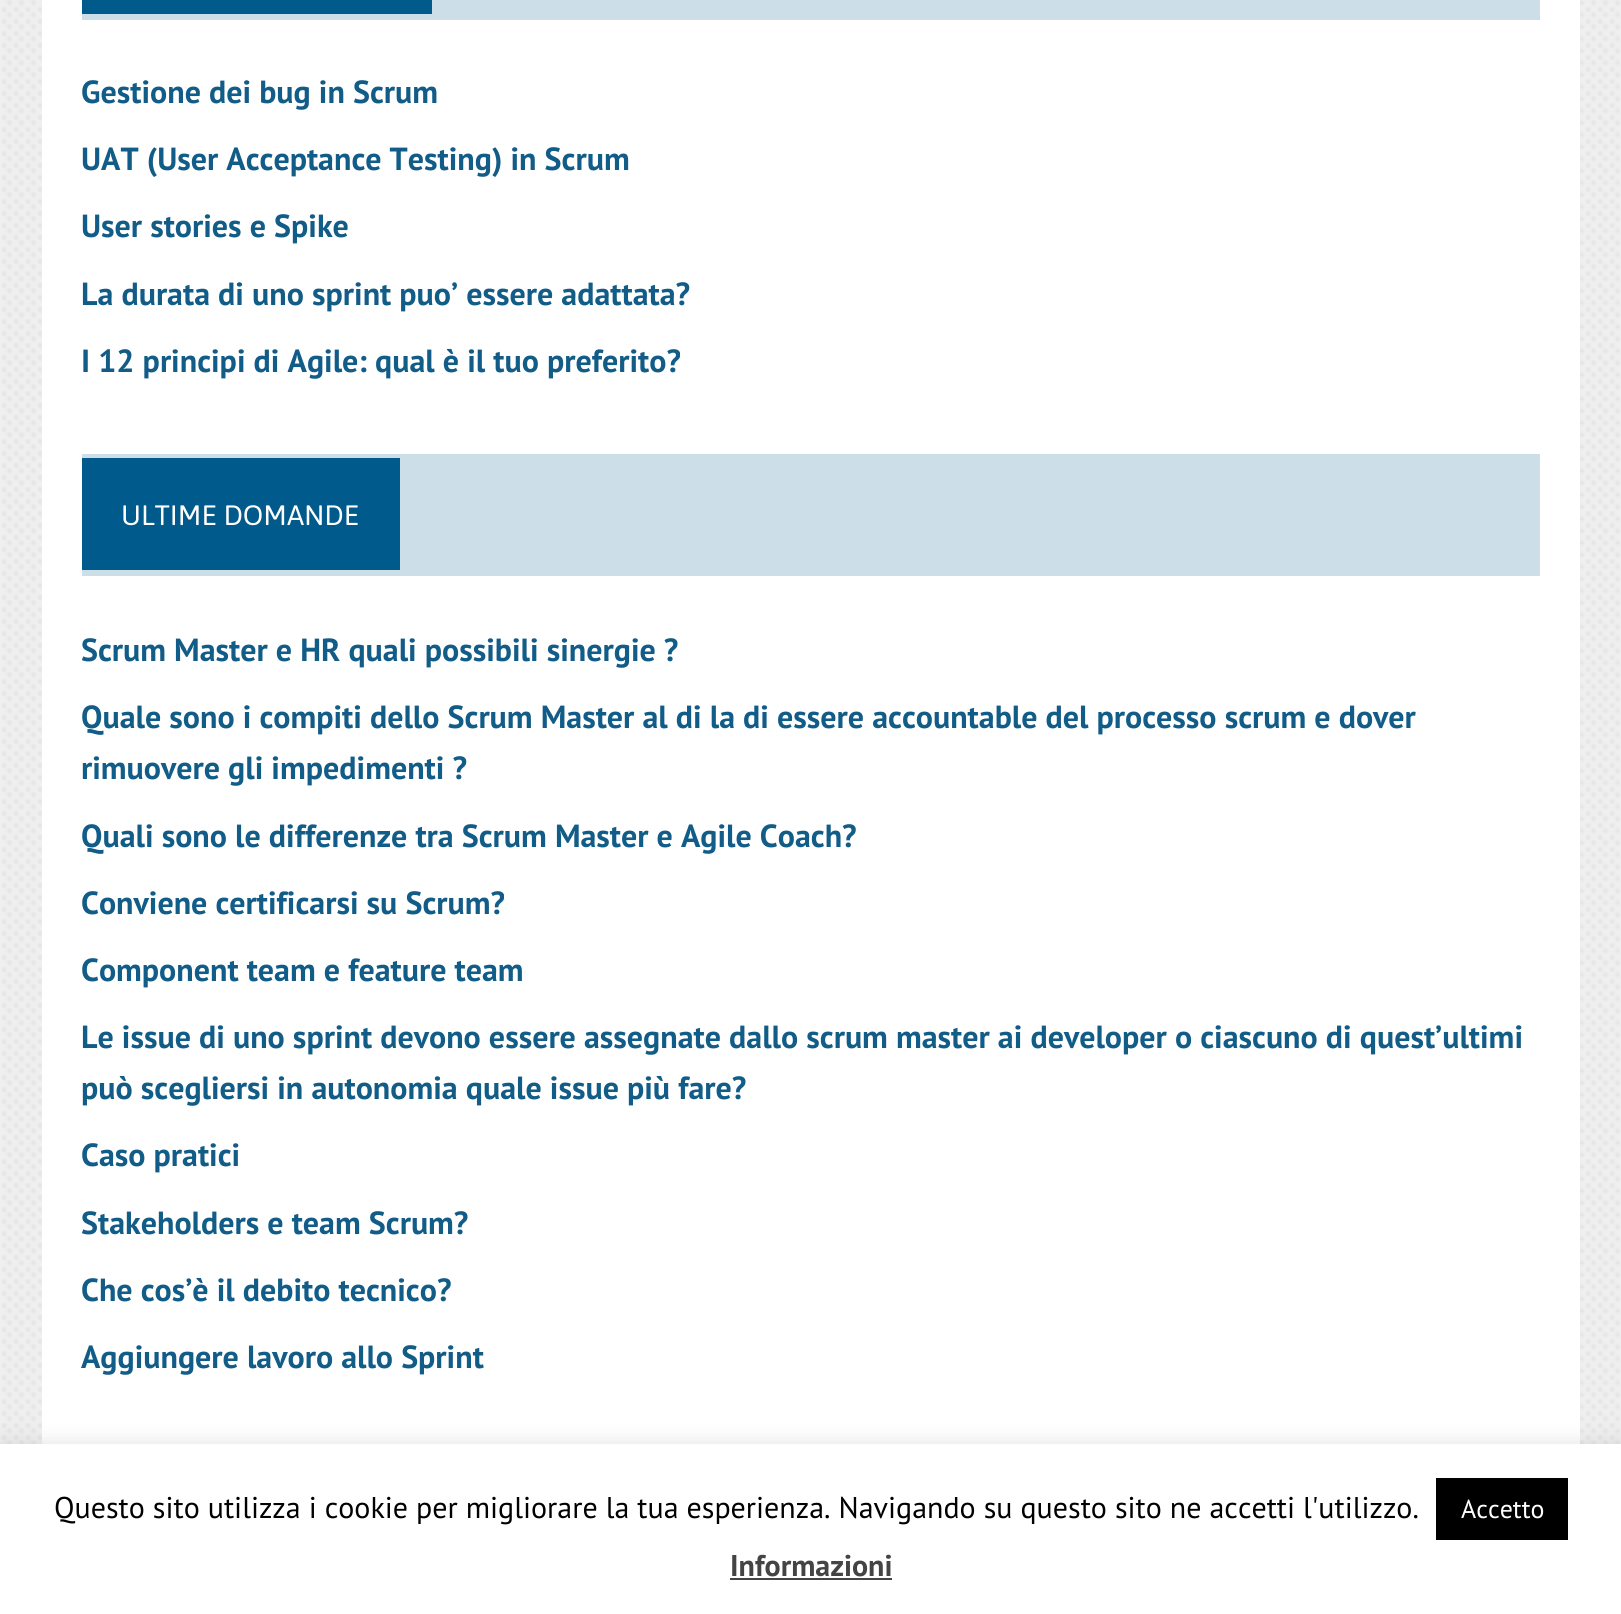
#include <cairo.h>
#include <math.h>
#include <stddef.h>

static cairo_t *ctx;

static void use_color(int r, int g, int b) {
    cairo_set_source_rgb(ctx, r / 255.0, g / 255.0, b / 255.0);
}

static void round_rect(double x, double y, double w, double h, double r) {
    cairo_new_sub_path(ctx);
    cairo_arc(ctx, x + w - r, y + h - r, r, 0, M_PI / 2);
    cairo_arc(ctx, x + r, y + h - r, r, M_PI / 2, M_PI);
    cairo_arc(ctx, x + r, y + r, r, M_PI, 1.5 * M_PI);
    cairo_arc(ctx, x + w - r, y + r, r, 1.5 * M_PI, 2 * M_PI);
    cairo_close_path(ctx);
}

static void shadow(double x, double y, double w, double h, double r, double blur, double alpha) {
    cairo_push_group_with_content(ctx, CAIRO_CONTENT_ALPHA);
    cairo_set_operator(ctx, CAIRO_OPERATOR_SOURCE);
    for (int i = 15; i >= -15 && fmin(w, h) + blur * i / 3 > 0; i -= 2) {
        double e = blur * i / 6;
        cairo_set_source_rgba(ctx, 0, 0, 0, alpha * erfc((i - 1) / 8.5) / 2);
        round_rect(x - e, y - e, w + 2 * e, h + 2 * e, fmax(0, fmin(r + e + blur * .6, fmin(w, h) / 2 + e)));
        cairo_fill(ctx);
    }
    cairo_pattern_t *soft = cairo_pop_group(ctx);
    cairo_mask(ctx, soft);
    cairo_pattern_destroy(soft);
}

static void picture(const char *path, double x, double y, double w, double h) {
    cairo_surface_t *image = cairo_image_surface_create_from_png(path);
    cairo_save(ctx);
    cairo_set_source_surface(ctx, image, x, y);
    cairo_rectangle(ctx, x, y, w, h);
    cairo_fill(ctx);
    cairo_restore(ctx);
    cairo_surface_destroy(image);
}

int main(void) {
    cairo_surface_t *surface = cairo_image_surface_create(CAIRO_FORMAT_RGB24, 1621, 1614);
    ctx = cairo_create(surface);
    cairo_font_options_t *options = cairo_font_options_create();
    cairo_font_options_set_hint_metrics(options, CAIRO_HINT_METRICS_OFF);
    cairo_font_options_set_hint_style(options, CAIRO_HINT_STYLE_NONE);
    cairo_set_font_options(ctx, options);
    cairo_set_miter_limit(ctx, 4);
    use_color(239, 239, 239);
    cairo_paint(ctx);
    picture("img1.png", 2, 0, 1618, 1444);
    use_color(255, 255, 255);
    cairo_rectangle(ctx, 42, 0, 1538, 1444);
    cairo_fill(ctx);
    use_color(204, 222, 232);
    cairo_rectangle(ctx, 82, 0, 1458, 20);
    cairo_fill(ctx);
    use_color(0, 90, 140);
    cairo_rectangle(ctx, 82, 0, 350, 14);
    cairo_fill(ctx);
    cairo_select_font_face(ctx, "PT Sans", CAIRO_FONT_SLANT_NORMAL, CAIRO_FONT_WEIGHT_BOLD);
    cairo_set_font_size(ctx, 32);
    use_color(18, 92, 136);
    cairo_move_to(ctx, 81, 103);
    cairo_show_text(ctx, "Gestione dei bug in Scrum");
    cairo_move_to(ctx, 81, 170);
    cairo_show_text(ctx, "UAT (User Acceptance Testing) in Scrum");
    cairo_move_to(ctx, 81, 237);
    cairo_show_text(ctx, "User stories e Spike");
    cairo_move_to(ctx, 81, 305);
    cairo_show_text(ctx, "La durata di uno sprint puo’ essere adattata?");
    cairo_move_to(ctx, 81, 372);
    cairo_show_text(ctx, "I 12 principi di Agile: qual è il tuo preferito?");
    use_color(204, 222, 232);
    cairo_rectangle(ctx, 82, 454, 1458, 122);
    cairo_fill(ctx);
    use_color(0, 90, 140);
    cairo_rectangle(ctx, 82, 458, 318, 112);
    cairo_fill(ctx);
    cairo_select_font_face(ctx, "Asap", CAIRO_FONT_SLANT_NORMAL, CAIRO_FONT_WEIGHT_NORMAL);
    cairo_set_font_size(ctx, 28);
    use_color(255, 255, 255);
    cairo_move_to(ctx, 121, 525);
    cairo_show_text(ctx, "ULTIME DOMANDE");
    cairo_select_font_face(ctx, "PT Sans", CAIRO_FONT_SLANT_NORMAL, CAIRO_FONT_WEIGHT_BOLD);
    cairo_set_font_size(ctx, 32);
    use_color(18, 92, 136);
    cairo_move_to(ctx, 81, 661);
    cairo_show_text(ctx, "Scrum Master e HR quali possibili sinergie ?");
    cairo_move_to(ctx, 81, 728);
    cairo_show_text(ctx, "Quale sono i compiti dello Scrum Master al di la di essere accountable del processo scrum e dover");
    cairo_move_to(ctx, 81, 779);
    cairo_show_text(ctx, "rimuovere gli impedimenti ?");
    cairo_move_to(ctx, 81, 847);
    cairo_show_text(ctx, "Quali sono le differenze tra Scrum Master e Agile Coach?");
    cairo_move_to(ctx, 81, 914);
    cairo_show_text(ctx, "Conviene certificarsi su Scrum?");
    cairo_move_to(ctx, 81, 981);
    cairo_show_text(ctx, "Component team e feature team");
    cairo_move_to(ctx, 81, 1048);
    cairo_show_text(ctx, "Le issue di uno sprint devono essere assegnate dallo scrum master ai developer o ciascuno di quest’ultimi");
    cairo_move_to(ctx, 81, 1099);
    cairo_show_text(ctx, "può scegliersi in autonomia quale issue più fare?");
    cairo_move_to(ctx, 81, 1166);
    cairo_show_text(ctx, "Caso pratici");
    cairo_move_to(ctx, 81, 1234);
    cairo_show_text(ctx, "Stakeholders e team Scrum?");
    cairo_move_to(ctx, 81, 1301);
    cairo_show_text(ctx, "Che cos’è il debito tecnico?");
    cairo_move_to(ctx, 81, 1368);
    cairo_show_text(ctx, "Aggiungere lavoro allo Sprint");
    use_color(172, 171, 171);
    shadow(0, 1442, 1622, 170, 0, 10, 0.3);
    use_color(255, 255, 255);
    cairo_rectangle(ctx, 0, 1444, 1621, 170);
    cairo_fill(ctx);
    cairo_select_font_face(ctx, "PT Sans", CAIRO_FONT_SLANT_NORMAL, CAIRO_FONT_WEIGHT_NORMAL);
    cairo_set_font_size(ctx, 30);
    use_color(0, 0, 0);
    cairo_move_to(ctx, 54, 1518);
    cairo_show_text(ctx, "Questo sito utilizza i cookie per migliorare la tua esperienza. Navigando su questo sito ne accetti l'utilizzo.");
    cairo_rectangle(ctx, 1436, 1478, 132, 62);
    cairo_fill(ctx);
    cairo_set_font_size(ctx, 26);
    use_color(255, 255, 255);
    cairo_move_to(ctx, 1461, 1518);
    cairo_show_text(ctx, "Accetto");
    cairo_select_font_face(ctx, "PT Sans", CAIRO_FONT_SLANT_NORMAL, CAIRO_FONT_WEIGHT_BOLD);
    cairo_set_font_size(ctx, 30);
    use_color(68, 68, 68);
    cairo_move_to(ctx, 730, 1576);
    cairo_show_text(ctx, "Informazioni");
    cairo_rectangle(ctx, 730, 1578, 162, 2);
    cairo_fill(ctx);
    cairo_surface_write_to_png(surface, "result.png");
    cairo_font_options_destroy(options);
    cairo_destroy(ctx);
    cairo_surface_destroy(surface);
    return 0;
}
